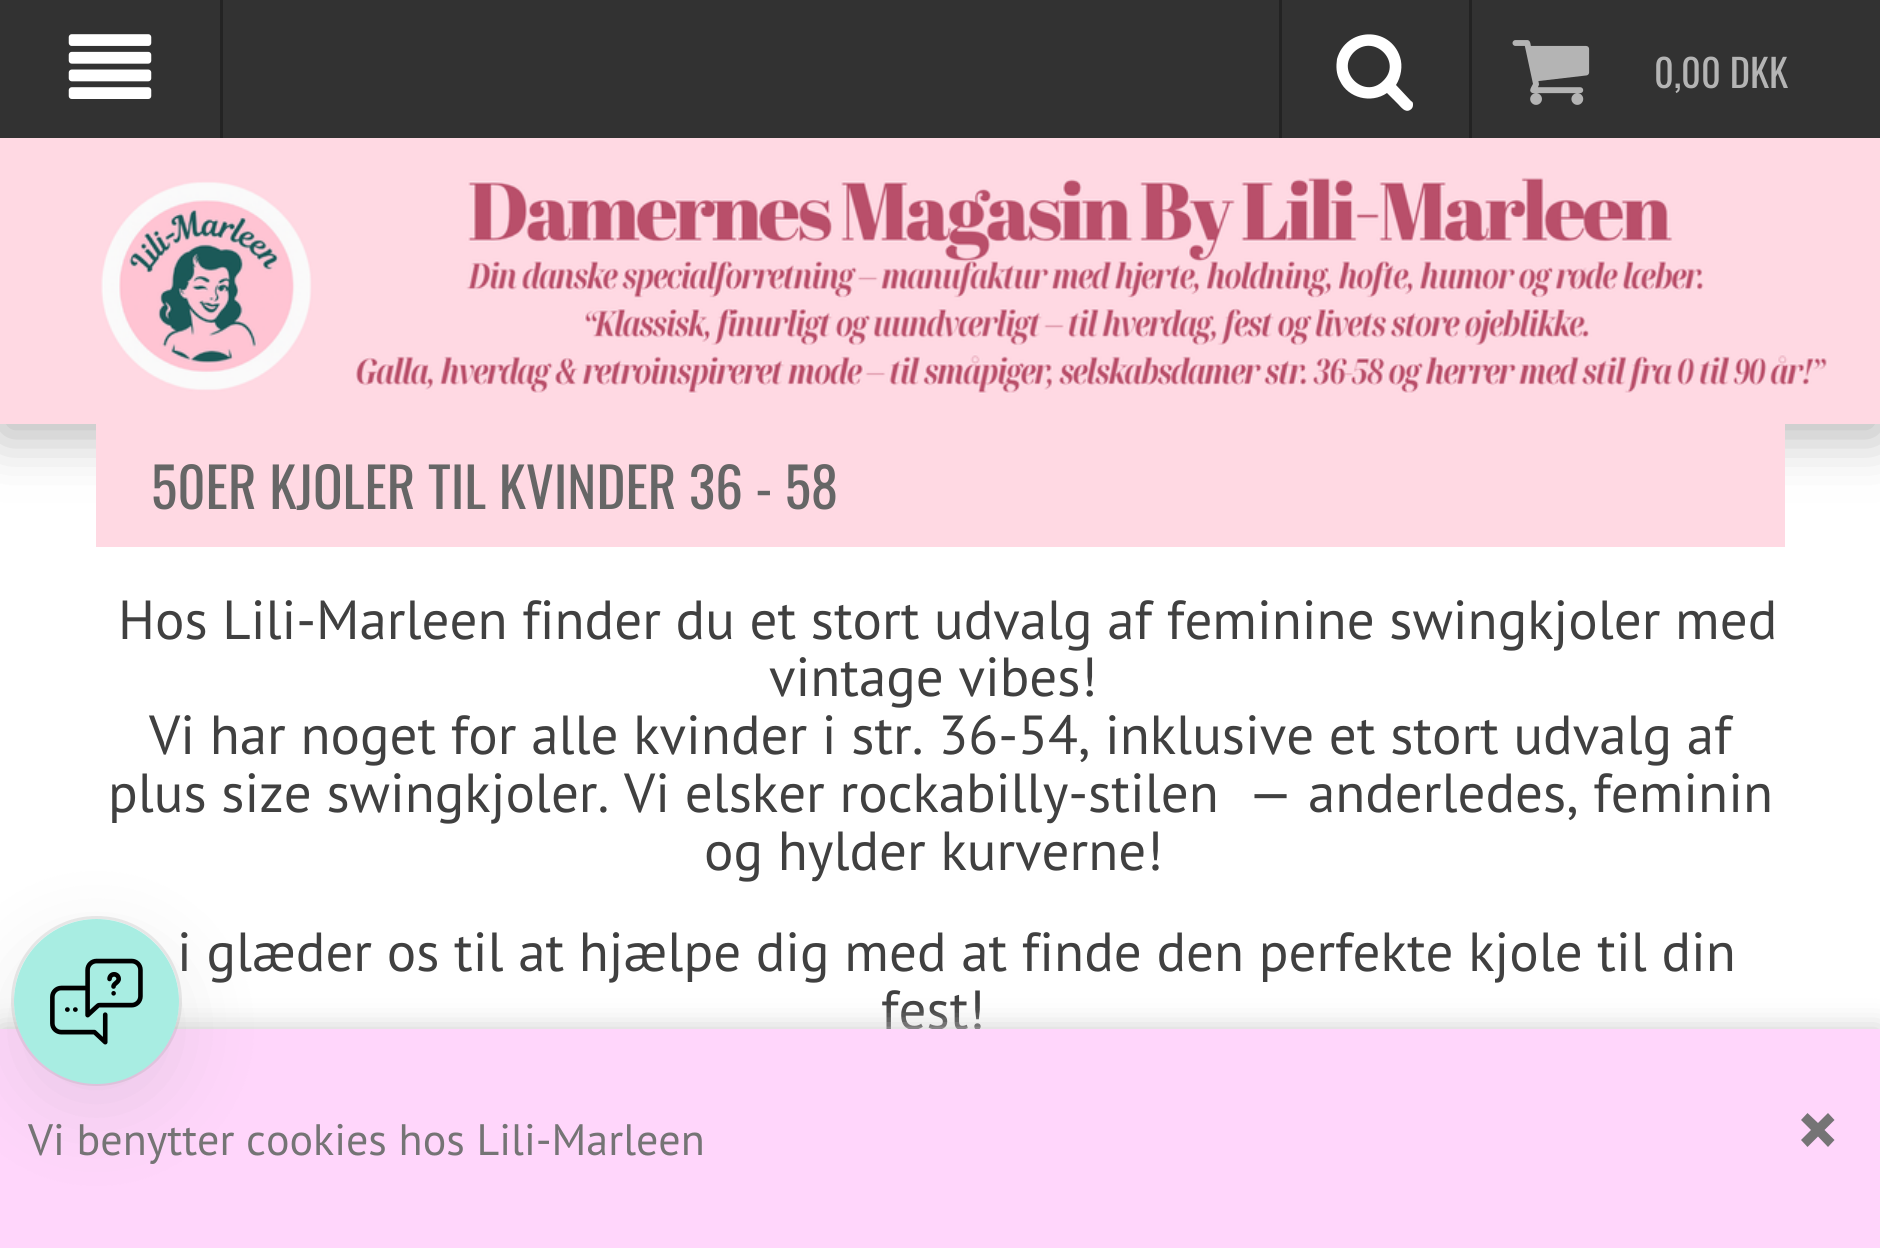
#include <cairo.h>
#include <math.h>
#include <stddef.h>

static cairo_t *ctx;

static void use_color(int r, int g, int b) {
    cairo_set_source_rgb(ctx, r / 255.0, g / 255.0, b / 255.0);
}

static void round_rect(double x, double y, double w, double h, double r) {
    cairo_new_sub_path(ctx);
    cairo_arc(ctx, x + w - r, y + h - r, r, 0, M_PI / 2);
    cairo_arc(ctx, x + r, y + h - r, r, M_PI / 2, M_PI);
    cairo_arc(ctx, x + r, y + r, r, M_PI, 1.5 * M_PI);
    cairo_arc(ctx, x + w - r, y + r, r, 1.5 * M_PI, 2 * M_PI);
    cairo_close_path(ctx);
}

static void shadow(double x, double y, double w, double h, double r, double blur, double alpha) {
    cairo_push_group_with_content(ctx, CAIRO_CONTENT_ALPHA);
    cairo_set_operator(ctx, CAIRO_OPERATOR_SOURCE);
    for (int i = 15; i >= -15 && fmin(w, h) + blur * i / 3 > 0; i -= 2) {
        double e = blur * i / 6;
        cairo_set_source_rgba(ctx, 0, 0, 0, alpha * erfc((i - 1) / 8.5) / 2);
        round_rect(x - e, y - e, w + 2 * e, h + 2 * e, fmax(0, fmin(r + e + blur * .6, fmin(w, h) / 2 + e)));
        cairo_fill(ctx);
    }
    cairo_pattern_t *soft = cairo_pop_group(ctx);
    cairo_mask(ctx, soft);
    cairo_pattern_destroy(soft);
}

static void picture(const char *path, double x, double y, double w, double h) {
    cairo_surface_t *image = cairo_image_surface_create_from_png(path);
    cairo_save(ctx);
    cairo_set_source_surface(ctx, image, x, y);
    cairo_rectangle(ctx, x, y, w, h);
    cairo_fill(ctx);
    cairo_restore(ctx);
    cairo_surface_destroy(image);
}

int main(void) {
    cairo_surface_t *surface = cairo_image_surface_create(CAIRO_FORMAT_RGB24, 1880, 1248);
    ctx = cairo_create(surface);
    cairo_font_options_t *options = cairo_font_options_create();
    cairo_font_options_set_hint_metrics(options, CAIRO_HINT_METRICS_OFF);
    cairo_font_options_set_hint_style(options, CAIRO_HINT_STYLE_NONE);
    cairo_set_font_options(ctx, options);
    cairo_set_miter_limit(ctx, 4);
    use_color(255, 255, 255);
    cairo_paint(ctx);
    use_color(180, 180, 180);
    shadow(0, 11, 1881, 424, 0, 27.5, 1);
    use_color(255, 217, 227);
    cairo_rectangle(ctx, 0, 138, 1880, 286);
    cairo_fill(ctx);
    use_color(50, 50, 50);
    cairo_rectangle(ctx, 0, 0, 1880, 138);
    cairo_fill(ctx);
    use_color(35, 35, 35);
    cairo_rectangle(ctx, 220, 0, 3, 138);
    cairo_fill(ctx);
    picture("img1.png", 68, 34, 84, 65);
    cairo_rectangle(ctx, 1279, 0, 3, 138);
    cairo_fill(ctx);
    use_color(255, 255, 255);
    cairo_new_path(ctx);
    cairo_move_to(ctx, 1383, 81);
    cairo_curve_to(ctx, 1403, 62, 1374, 33, 1354, 52);
    cairo_curve_to(ctx, 1335, 71, 1364, 100, 1383, 81);
    cairo_close_path(ctx);
    cairo_move_to(ctx, 1413, 105);
    cairo_curve_to(ctx, 1413, 107, 1412, 109, 1410, 110);
    cairo_curve_to(ctx, 1405, 113, 1401, 107, 1398, 104);
    cairo_line_to(ctx, 1387, 93);
    cairo_curve_to(ctx, 1371, 104, 1348, 98, 1340, 81);
    cairo_curve_to(ctx, 1336, 74, 1336, 66, 1337, 59);
    cairo_curve_to(ctx, 1346, 27, 1390, 26, 1400, 57);
    cairo_curve_to(ctx, 1403, 66, 1401, 77, 1396, 85);
    cairo_line_to(ctx, 1411, 101);
    cairo_curve_to(ctx, 1413, 102, 1413, 103, 1413, 105);
    cairo_close_path(ctx);
    cairo_fill(ctx);
    use_color(35, 35, 35);
    cairo_rectangle(ctx, 1469, 0, 3, 138);
    cairo_fill(ctx);
    picture("img2.png", 1512, 40, 78, 65);
    cairo_select_font_face(ctx, "Oswald", CAIRO_FONT_SLANT_NORMAL, CAIRO_FONT_WEIGHT_NORMAL);
    cairo_set_font_size(ctx, 38.5);
    use_color(180, 180, 180);
    cairo_move_to(ctx, 1654, 88);
    cairo_show_text(ctx, "0,00 DKK");
    picture("img3.png", 101, 177, 1727, 217);
    use_color(255, 217, 227);
    cairo_rectangle(ctx, 96, 424, 1689, 123);
    cairo_fill(ctx);
    cairo_set_font_size(ctx, 55);
    use_color(102, 102, 102);
    cairo_move_to(ctx, 151, 509);
    cairo_show_text(ctx, "50ER KJOLER TIL KVINDER 36 - 58");
    cairo_select_font_face(ctx, "PT Sans", CAIRO_FONT_SLANT_NORMAL, CAIRO_FONT_WEIGHT_NORMAL);
    use_color(64, 64, 64);
    cairo_move_to(ctx, 118, 639);
    cairo_show_text(ctx, "Hos Lili-Marleen finder du et stort udvalg af feminine swingkjoler med");
    cairo_move_to(ctx, 769, 696);
    cairo_show_text(ctx, "vintage vibes!");
    cairo_move_to(ctx, 149, 754);
    cairo_show_text(ctx, "Vi har noget for alle kvinder i str. 36-54, inklusive et stort udvalg af");
    cairo_move_to(ctx, 108, 812);
    cairo_show_text(ctx, "plus size swingkjoler. Vi elsker rockabilly-stilen  — anderledes, feminin");
    cairo_move_to(ctx, 704, 870);
    cairo_show_text(ctx, "og hylder kurverne!");
    cairo_move_to(ctx, 177, 971);
    cairo_show_text(ctx, "i glæder os til at hjælpe dig med at finde den perfekte kjole til din");
    cairo_move_to(ctx, 881, 1029);
    cairo_show_text(ctx, "fest!");
    use_color(204, 204, 204);
    shadow(0, 1029, 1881, 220, 0, 14, 1);
    use_color(255, 214, 251);
    cairo_rectangle(ctx, 0, 1029, 1880, 219);
    cairo_fill(ctx);
    round_rect(12.5, 917.5, 168, 167, 83.5);
    cairo_set_source_rgba(ctx, 0.588, 0.588, 0.588, 0.2);
    cairo_set_line_width(ctx, 3);
    cairo_stroke(ctx);
    use_color(150, 150, 150);
    shadow(14, 946, 165, 165, 82.5, 41, 0.2);
    use_color(168, 237, 226);
    cairo_arc(ctx, 96.5, 1001.5, 82.5, 0, 2 * M_PI);
    cairo_fill(ctx);
    picture("img4.png", 50, 958, 93, 87);
    cairo_set_font_size(ctx, 44);
    use_color(117, 116, 117);
    cairo_move_to(ctx, 28, 1155);
    cairo_show_text(ctx, "Vi benytter cookies hos Lili-Marleen");
    cairo_new_path(ctx);
    cairo_move_to(ctx, 1834.5, 1140);
    cairo_line_to(ctx, 1828, 1147);
    cairo_line_to(ctx, 1818, 1136.5);
    cairo_line_to(ctx, 1807.5, 1147);
    cairo_line_to(ctx, 1801, 1140);
    cairo_line_to(ctx, 1811, 1130);
    cairo_line_to(ctx, 1801, 1120);
    cairo_line_to(ctx, 1807.5, 1113);
    cairo_line_to(ctx, 1818, 1123);
    cairo_line_to(ctx, 1828, 1113);
    cairo_line_to(ctx, 1834.5, 1120);
    cairo_line_to(ctx, 1824.5, 1130);
    cairo_close_path(ctx);
    cairo_fill(ctx);
    cairo_surface_write_to_png(surface, "result.png");
    cairo_font_options_destroy(options);
    cairo_destroy(ctx);
    cairo_surface_destroy(surface);
    return 0;
}
